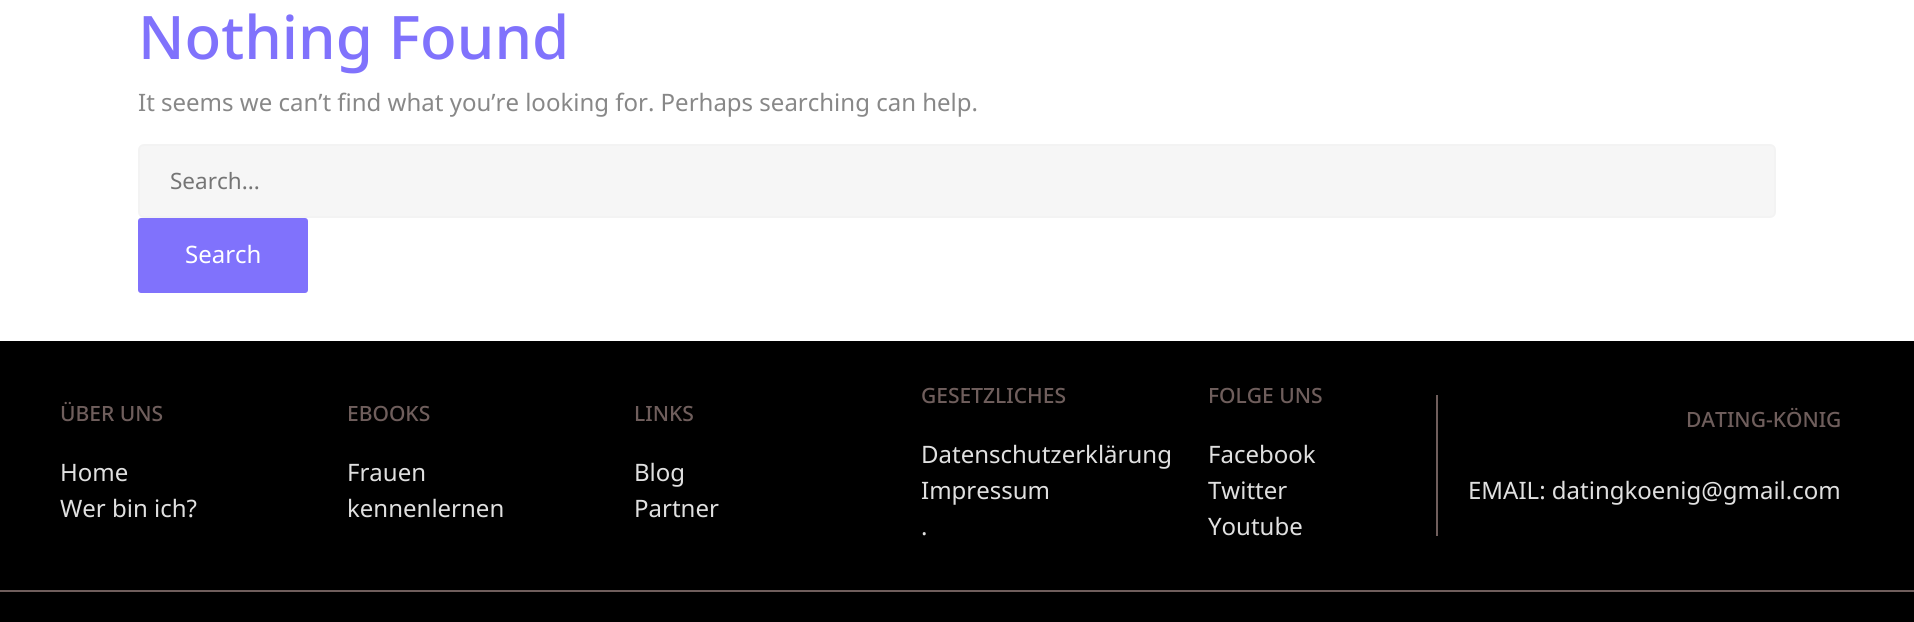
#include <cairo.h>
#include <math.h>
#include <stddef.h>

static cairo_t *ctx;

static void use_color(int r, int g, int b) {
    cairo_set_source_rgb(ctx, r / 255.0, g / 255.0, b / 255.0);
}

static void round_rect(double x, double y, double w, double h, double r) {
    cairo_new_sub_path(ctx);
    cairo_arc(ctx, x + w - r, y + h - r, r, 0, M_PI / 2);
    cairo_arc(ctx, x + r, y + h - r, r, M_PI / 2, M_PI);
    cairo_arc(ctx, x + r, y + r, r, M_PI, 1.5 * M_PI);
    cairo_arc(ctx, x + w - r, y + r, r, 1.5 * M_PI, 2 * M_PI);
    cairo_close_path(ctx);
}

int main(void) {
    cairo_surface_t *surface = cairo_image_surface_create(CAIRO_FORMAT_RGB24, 1914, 622);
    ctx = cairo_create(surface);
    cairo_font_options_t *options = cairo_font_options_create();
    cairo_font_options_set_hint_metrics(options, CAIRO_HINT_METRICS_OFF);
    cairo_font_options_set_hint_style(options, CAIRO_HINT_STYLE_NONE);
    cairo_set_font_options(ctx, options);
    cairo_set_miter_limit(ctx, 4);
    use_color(255, 255, 255);
    cairo_paint(ctx);
    cairo_select_font_face(ctx, "Noto Sans Medium", CAIRO_FONT_SLANT_NORMAL, CAIRO_FONT_WEIGHT_NORMAL);
    cairo_set_font_size(ctx, 60);
    use_color(128, 114, 252);
    cairo_move_to(ctx, 138, 59);
    cairo_show_text(ctx, "Nothing Found");
    cairo_select_font_face(ctx, "Noto Sans", CAIRO_FONT_SLANT_NORMAL, CAIRO_FONT_WEIGHT_NORMAL);
    cairo_set_font_size(ctx, 24);
    use_color(136, 136, 136);
    cairo_move_to(ctx, 138, 111);
    cairo_show_text(ctx, "It seems we can’t find what you’re looking for. Perhaps searching can help.");
    use_color(246, 246, 246);
    round_rect(139, 145, 1636, 72, 5);
    cairo_fill_preserve(ctx);
    use_color(243, 243, 243);
    cairo_stroke(ctx);
    cairo_set_font_size(ctx, 22.5);
    use_color(117, 117, 117);
    cairo_move_to(ctx, 170, 189);
    cairo_show_text(ctx, "Search...");
    use_color(128, 114, 252);
    round_rect(139, 219, 168, 73, 2);
    cairo_fill_preserve(ctx);
    cairo_stroke(ctx);
    cairo_set_font_size(ctx, 24);
    use_color(255, 255, 255);
    cairo_move_to(ctx, 185, 263);
    cairo_show_text(ctx, "Search");
    use_color(0, 0, 0);
    cairo_rectangle(ctx, 0, 341, 1914, 249);
    cairo_fill(ctx);
    cairo_select_font_face(ctx, "Noto Sans Medium", CAIRO_FONT_SLANT_NORMAL, CAIRO_FONT_WEIGHT_NORMAL);
    cairo_set_font_size(ctx, 21);
    use_color(111, 94, 92);
    cairo_move_to(ctx, 60, 421);
    cairo_show_text(ctx, "ÜBER UNS");
    cairo_select_font_face(ctx, "Noto Sans", CAIRO_FONT_SLANT_NORMAL, CAIRO_FONT_WEIGHT_NORMAL);
    cairo_set_font_size(ctx, 24);
    use_color(224, 224, 224);
    cairo_move_to(ctx, 60, 481);
    cairo_show_text(ctx, "Home");
    cairo_move_to(ctx, 60, 517);
    cairo_show_text(ctx, "Wer bin ich?");
    cairo_select_font_face(ctx, "Noto Sans Medium", CAIRO_FONT_SLANT_NORMAL, CAIRO_FONT_WEIGHT_NORMAL);
    cairo_set_font_size(ctx, 21);
    use_color(111, 94, 92);
    cairo_move_to(ctx, 347, 421);
    cairo_show_text(ctx, "EBOOKS");
    cairo_select_font_face(ctx, "Noto Sans", CAIRO_FONT_SLANT_NORMAL, CAIRO_FONT_WEIGHT_NORMAL);
    cairo_set_font_size(ctx, 24);
    use_color(224, 224, 224);
    cairo_move_to(ctx, 347, 481);
    cairo_show_text(ctx, "Frauen");
    cairo_move_to(ctx, 347, 517);
    cairo_show_text(ctx, "kennenlernen");
    cairo_select_font_face(ctx, "Noto Sans Medium", CAIRO_FONT_SLANT_NORMAL, CAIRO_FONT_WEIGHT_NORMAL);
    cairo_set_font_size(ctx, 21);
    use_color(111, 94, 92);
    cairo_move_to(ctx, 634, 421);
    cairo_show_text(ctx, "LINKS");
    cairo_select_font_face(ctx, "Noto Sans", CAIRO_FONT_SLANT_NORMAL, CAIRO_FONT_WEIGHT_NORMAL);
    cairo_set_font_size(ctx, 24);
    use_color(224, 224, 224);
    cairo_move_to(ctx, 634, 481);
    cairo_show_text(ctx, "Blog");
    cairo_move_to(ctx, 634, 517);
    cairo_show_text(ctx, "Partner");
    cairo_select_font_face(ctx, "Noto Sans Medium", CAIRO_FONT_SLANT_NORMAL, CAIRO_FONT_WEIGHT_NORMAL);
    cairo_set_font_size(ctx, 21);
    use_color(111, 94, 92);
    cairo_move_to(ctx, 921, 403);
    cairo_show_text(ctx, "GESETZLICHES");
    cairo_select_font_face(ctx, "Noto Sans", CAIRO_FONT_SLANT_NORMAL, CAIRO_FONT_WEIGHT_NORMAL);
    cairo_set_font_size(ctx, 24);
    use_color(224, 224, 224);
    cairo_move_to(ctx, 921, 463);
    cairo_show_text(ctx, "Datenschutzerklärung");
    cairo_move_to(ctx, 921, 499);
    cairo_show_text(ctx, "Impressum");
    cairo_move_to(ctx, 921, 535);
    cairo_show_text(ctx, ".");
    cairo_select_font_face(ctx, "Noto Sans Medium", CAIRO_FONT_SLANT_NORMAL, CAIRO_FONT_WEIGHT_NORMAL);
    cairo_set_font_size(ctx, 21);
    use_color(111, 94, 92);
    cairo_move_to(ctx, 1208, 403);
    cairo_show_text(ctx, "FOLGE UNS");
    cairo_select_font_face(ctx, "Noto Sans", CAIRO_FONT_SLANT_NORMAL, CAIRO_FONT_WEIGHT_NORMAL);
    cairo_set_font_size(ctx, 24);
    use_color(224, 224, 224);
    cairo_move_to(ctx, 1208, 463);
    cairo_show_text(ctx, "Facebook");
    cairo_move_to(ctx, 1208, 499);
    cairo_show_text(ctx, "Twitter");
    cairo_move_to(ctx, 1208, 535);
    cairo_show_text(ctx, "Youtube");
    use_color(111, 94, 92);
    cairo_rectangle(ctx, 1436, 395, 2, 141);
    cairo_fill(ctx);
    cairo_select_font_face(ctx, "Noto Sans Medium", CAIRO_FONT_SLANT_NORMAL, CAIRO_FONT_WEIGHT_NORMAL);
    cairo_set_font_size(ctx, 21);
    cairo_move_to(ctx, 1686, 427);
    cairo_show_text(ctx, "DATING-KÖNIG");
    cairo_select_font_face(ctx, "Noto Sans", CAIRO_FONT_SLANT_NORMAL, CAIRO_FONT_WEIGHT_NORMAL);
    cairo_set_font_size(ctx, 24);
    use_color(224, 224, 224);
    cairo_move_to(ctx, 1468, 499);
    cairo_show_text(ctx, "EMAIL: datingkoenig@gmail.com");
    use_color(0, 0, 0);
    cairo_rectangle(ctx, 0, 592, 1914, 30);
    cairo_fill(ctx);
    use_color(111, 94, 92);
    cairo_rectangle(ctx, 0, 590, 1914, 2);
    cairo_fill(ctx);
    cairo_surface_write_to_png(surface, "result.png");
    cairo_font_options_destroy(options);
    cairo_destroy(ctx);
    cairo_surface_destroy(surface);
    return 0;
}
